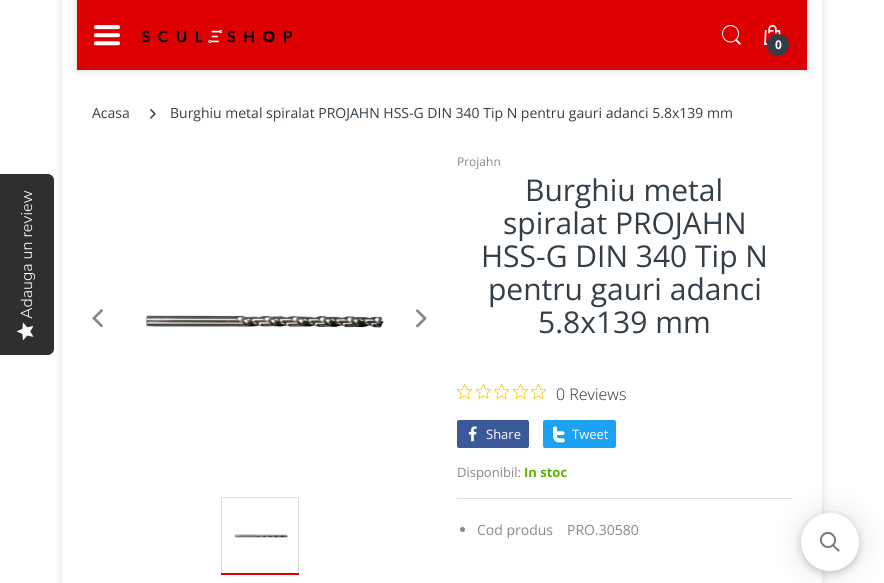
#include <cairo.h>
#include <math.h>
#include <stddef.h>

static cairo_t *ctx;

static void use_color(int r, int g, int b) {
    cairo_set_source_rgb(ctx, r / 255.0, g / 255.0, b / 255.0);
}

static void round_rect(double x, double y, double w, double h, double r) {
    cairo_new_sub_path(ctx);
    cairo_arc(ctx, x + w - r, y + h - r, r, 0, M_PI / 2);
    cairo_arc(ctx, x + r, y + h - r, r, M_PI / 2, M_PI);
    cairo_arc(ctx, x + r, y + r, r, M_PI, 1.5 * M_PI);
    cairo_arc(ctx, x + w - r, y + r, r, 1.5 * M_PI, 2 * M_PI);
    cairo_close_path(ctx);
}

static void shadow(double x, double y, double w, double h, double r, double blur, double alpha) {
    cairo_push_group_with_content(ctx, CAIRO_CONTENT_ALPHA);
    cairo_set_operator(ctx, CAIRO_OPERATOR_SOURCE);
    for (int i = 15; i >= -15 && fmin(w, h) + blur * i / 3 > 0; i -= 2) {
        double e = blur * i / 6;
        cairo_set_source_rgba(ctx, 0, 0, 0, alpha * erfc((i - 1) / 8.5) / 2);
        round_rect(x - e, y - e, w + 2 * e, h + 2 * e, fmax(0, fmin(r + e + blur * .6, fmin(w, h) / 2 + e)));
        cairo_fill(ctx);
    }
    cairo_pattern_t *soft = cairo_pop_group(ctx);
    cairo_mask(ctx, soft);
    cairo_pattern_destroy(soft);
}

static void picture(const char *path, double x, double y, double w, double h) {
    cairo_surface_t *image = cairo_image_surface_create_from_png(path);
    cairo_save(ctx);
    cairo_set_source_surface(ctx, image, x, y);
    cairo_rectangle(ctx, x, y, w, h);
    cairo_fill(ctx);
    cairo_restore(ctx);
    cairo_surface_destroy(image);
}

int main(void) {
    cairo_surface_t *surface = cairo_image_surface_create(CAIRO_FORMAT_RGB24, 884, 583);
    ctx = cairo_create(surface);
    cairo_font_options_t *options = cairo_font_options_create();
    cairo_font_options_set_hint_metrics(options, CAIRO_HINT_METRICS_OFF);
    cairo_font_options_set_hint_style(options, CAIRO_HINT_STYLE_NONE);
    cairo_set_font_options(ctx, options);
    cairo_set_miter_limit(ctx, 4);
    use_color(255, 255, 255);
    cairo_paint(ctx);
    cairo_save(ctx);
    cairo_set_fill_rule(ctx, CAIRO_FILL_RULE_EVEN_ODD);
    cairo_new_path(ctx);
    cairo_move_to(ctx, 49, 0);
    cairo_line_to(ctx, 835, 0);
    cairo_line_to(ctx, 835, 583);
    cairo_line_to(ctx, 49, 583);
    cairo_close_path(ctx);
    cairo_move_to(ctx, 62, 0);
    cairo_line_to(ctx, 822, 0);
    cairo_line_to(ctx, 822, 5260);
    cairo_line_to(ctx, 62, 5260);
    cairo_close_path(ctx);
    cairo_clip(ctx);
    use_color(221, 221, 221);
    shadow(62, 0, 760, 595, 0, 4, 1);
    cairo_restore(ctx);
    use_color(47, 47, 47);
    cairo_new_path(ctx);
    cairo_move_to(ctx, 0, 355);
    cairo_line_to(ctx, 0, 174);
    cairo_line_to(ctx, 48, 174);
    cairo_curve_to(ctx, 51, 174, 54, 177, 54, 180);
    cairo_line_to(ctx, 54, 349);
    cairo_curve_to(ctx, 54, 352, 51, 355, 48, 355);
    cairo_close_path(ctx);
    cairo_fill(ctx);
    cairo_select_font_face(ctx, "Nunito Sans Light", CAIRO_FONT_SLANT_NORMAL, CAIRO_FONT_WEIGHT_NORMAL);
    cairo_set_font_size(ctx, 16);
    use_color(255, 255, 255);
    cairo_save(ctx);
    cairo_translate(ctx, 32, 319);
    cairo_rotate(ctx, -90 * M_PI / 180);
    cairo_move_to(ctx, 0, 0);
    cairo_show_text(ctx, "Adauga un review");
    cairo_restore(ctx);
    picture("img1.png", 16, 322, 18, 19);
    use_color(201, 201, 201);
    shadow(77, 0, 730, 70, 0, 4, 0.75);
    use_color(220, 0, 2);
    cairo_rectangle(ctx, 77, 0, 730, 70);
    cairo_fill(ctx);
    picture("img2.png", 93, 25, 28, 21);
    picture("img3.png", 142, 30, 150, 13);
    picture("img4.png", 722, 25, 19, 20);
    picture("img5.png", 764, 25, 17, 20);
    use_color(51, 62, 72);
    cairo_arc(ctx, 778, 45, 11, 0, 2 * M_PI);
    cairo_fill(ctx);
    cairo_select_font_face(ctx, "Open Sans", CAIRO_FONT_SLANT_NORMAL, CAIRO_FONT_WEIGHT_BOLD);
    cairo_set_font_size(ctx, 12);
    use_color(255, 255, 255);
    cairo_move_to(ctx, 775, 49);
    cairo_show_text(ctx, "0");
    cairo_select_font_face(ctx, "Open Sans", CAIRO_FONT_SLANT_NORMAL, CAIRO_FONT_WEIGHT_NORMAL);
    cairo_set_font_size(ctx, 14);
    use_color(51, 62, 72);
    cairo_move_to(ctx, 92, 118);
    cairo_show_text(ctx, "Acasa");
    picture("img6.png", 150, 109, 6, 10);
    cairo_move_to(ctx, 170, 118);
    cairo_show_text(ctx, "Burghiu metal spiralat PROJAHN HSS-G DIN 340 Tip N pentru gauri adanci 5.8x139 mm");
    picture("img7.png", 92, 309, 11, 19);
    picture("img8.png", 416, 309, 11, 19);
    picture("img9.png", 146, 315, 238, 13);
    cairo_rectangle(ctx, 221.5, 497.5, 77, 77);
    use_color(221, 221, 221);
    cairo_set_line_width(ctx, 1);
    cairo_stroke(ctx);
    picture("img10.png", 234, 534, 54, 4);
    use_color(220, 0, 2);
    cairo_rectangle(ctx, 221, 573, 78, 2);
    cairo_fill(ctx);
    cairo_set_font_size(ctx, 12);
    use_color(135, 135, 135);
    cairo_move_to(ctx, 457, 166);
    cairo_show_text(ctx, "Projahn");
    cairo_set_font_size(ctx, 30);
    use_color(51, 62, 72);
    cairo_move_to(ctx, 525, 201);
    cairo_show_text(ctx, "Burghiu metal");
    cairo_move_to(ctx, 503, 234);
    cairo_show_text(ctx, "spiralat PROJAHN");
    cairo_move_to(ctx, 481, 267);
    cairo_show_text(ctx, "HSS-G DIN 340 Tip N");
    cairo_move_to(ctx, 488, 300);
    cairo_show_text(ctx, "pentru gauri adanci");
    cairo_move_to(ctx, 538, 333);
    cairo_show_text(ctx, "5.8x139 mm");
    picture("img11.png", 457, 384, 15, 15);
    picture("img11.png", 476, 384, 15, 15);
    picture("img11.png", 494, 384, 15, 15);
    picture("img11.png", 513, 384, 15, 15);
    picture("img11.png", 531, 384, 15, 15);
    cairo_select_font_face(ctx, "Open Sans Light", CAIRO_FONT_SLANT_NORMAL, CAIRO_FONT_WEIGHT_NORMAL);
    cairo_set_font_size(ctx, 16);
    use_color(44, 44, 44);
    cairo_move_to(ctx, 556, 400);
    cairo_show_text(ctx, "0 Reviews");
    use_color(59, 89, 152);
    round_rect(457, 420, 72, 28, 2);
    cairo_fill(ctx);
    picture("img12.png", 468, 426, 9, 16);
    cairo_select_font_face(ctx, "Open Sans", CAIRO_FONT_SLANT_NORMAL, CAIRO_FONT_WEIGHT_NORMAL);
    cairo_set_font_size(ctx, 13);
    use_color(255, 255, 255);
    cairo_move_to(ctx, 486, 439);
    cairo_show_text(ctx, "Share");
    use_color(29, 161, 242);
    round_rect(543, 420, 73, 28, 2);
    cairo_fill(ctx);
    picture("img13.png", 553, 426, 12, 17);
    use_color(255, 255, 255);
    cairo_move_to(ctx, 572, 439);
    cairo_show_text(ctx, "Tweet");
    use_color(221, 221, 221);
    cairo_rectangle(ctx, 457, 498, 335, 1);
    cairo_fill(ctx);
    use_color(135, 135, 135);
    cairo_move_to(ctx, 457, 477);
    cairo_show_text(ctx, "Disponibil:");
    cairo_select_font_face(ctx, "Open Sans", CAIRO_FONT_SLANT_NORMAL, CAIRO_FONT_WEIGHT_BOLD);
    use_color(91, 179, 0);
    cairo_move_to(ctx, 524, 477);
    cairo_show_text(ctx, "In stoc");
    use_color(135, 135, 135);
    cairo_new_path(ctx);
    cairo_arc(ctx, 462.5, 529.5, 2.5, 0, 2 * M_PI);
    cairo_fill(ctx);
    cairo_select_font_face(ctx, "Open Sans", CAIRO_FONT_SLANT_NORMAL, CAIRO_FONT_WEIGHT_NORMAL);
    cairo_set_font_size(ctx, 14);
    cairo_move_to(ctx, 477, 535);
    cairo_show_text(ctx, "Cod produs");
    cairo_move_to(ctx, 567, 535);
    cairo_show_text(ctx, "PRO.30580");
    use_color(0, 0, 0);
    shadow(801, 517, 58, 58, 29, 4, 0.05);
    shadow(801, 515, 58, 58, 29, 4, 0.15);
    shadow(801, 513, 58, 58, 29, 15, 0.1);
    use_color(255, 255, 255);
    cairo_arc(ctx, 830, 542, 29, 0, 2 * M_PI);
    cairo_fill(ctx);
    cairo_new_path(ctx);
    cairo_move_to(ctx, 823, 535);
    cairo_curve_to(ctx, 829.5, 528.5, 839.5, 538.5, 833, 545);
    cairo_curve_to(ctx, 826.5, 551.5, 816.5, 541.5, 823, 535);
    cairo_close_path(ctx);
    use_color(120, 120, 120);
    cairo_set_line_width(ctx, 2);
    cairo_stroke(ctx);
    cairo_new_path(ctx);
    cairo_move_to(ctx, 832, 545.5);
    cairo_line_to(ctx, 833.5, 544.5);
    cairo_line_to(ctx, 839.5, 550);
    cairo_curve_to(ctx, 840, 551, 838.5, 552, 838, 551.5);
    cairo_close_path(ctx);
    cairo_fill(ctx);
    cairo_surface_write_to_png(surface, "result.png");
    cairo_font_options_destroy(options);
    cairo_destroy(ctx);
    cairo_surface_destroy(surface);
    return 0;
}
